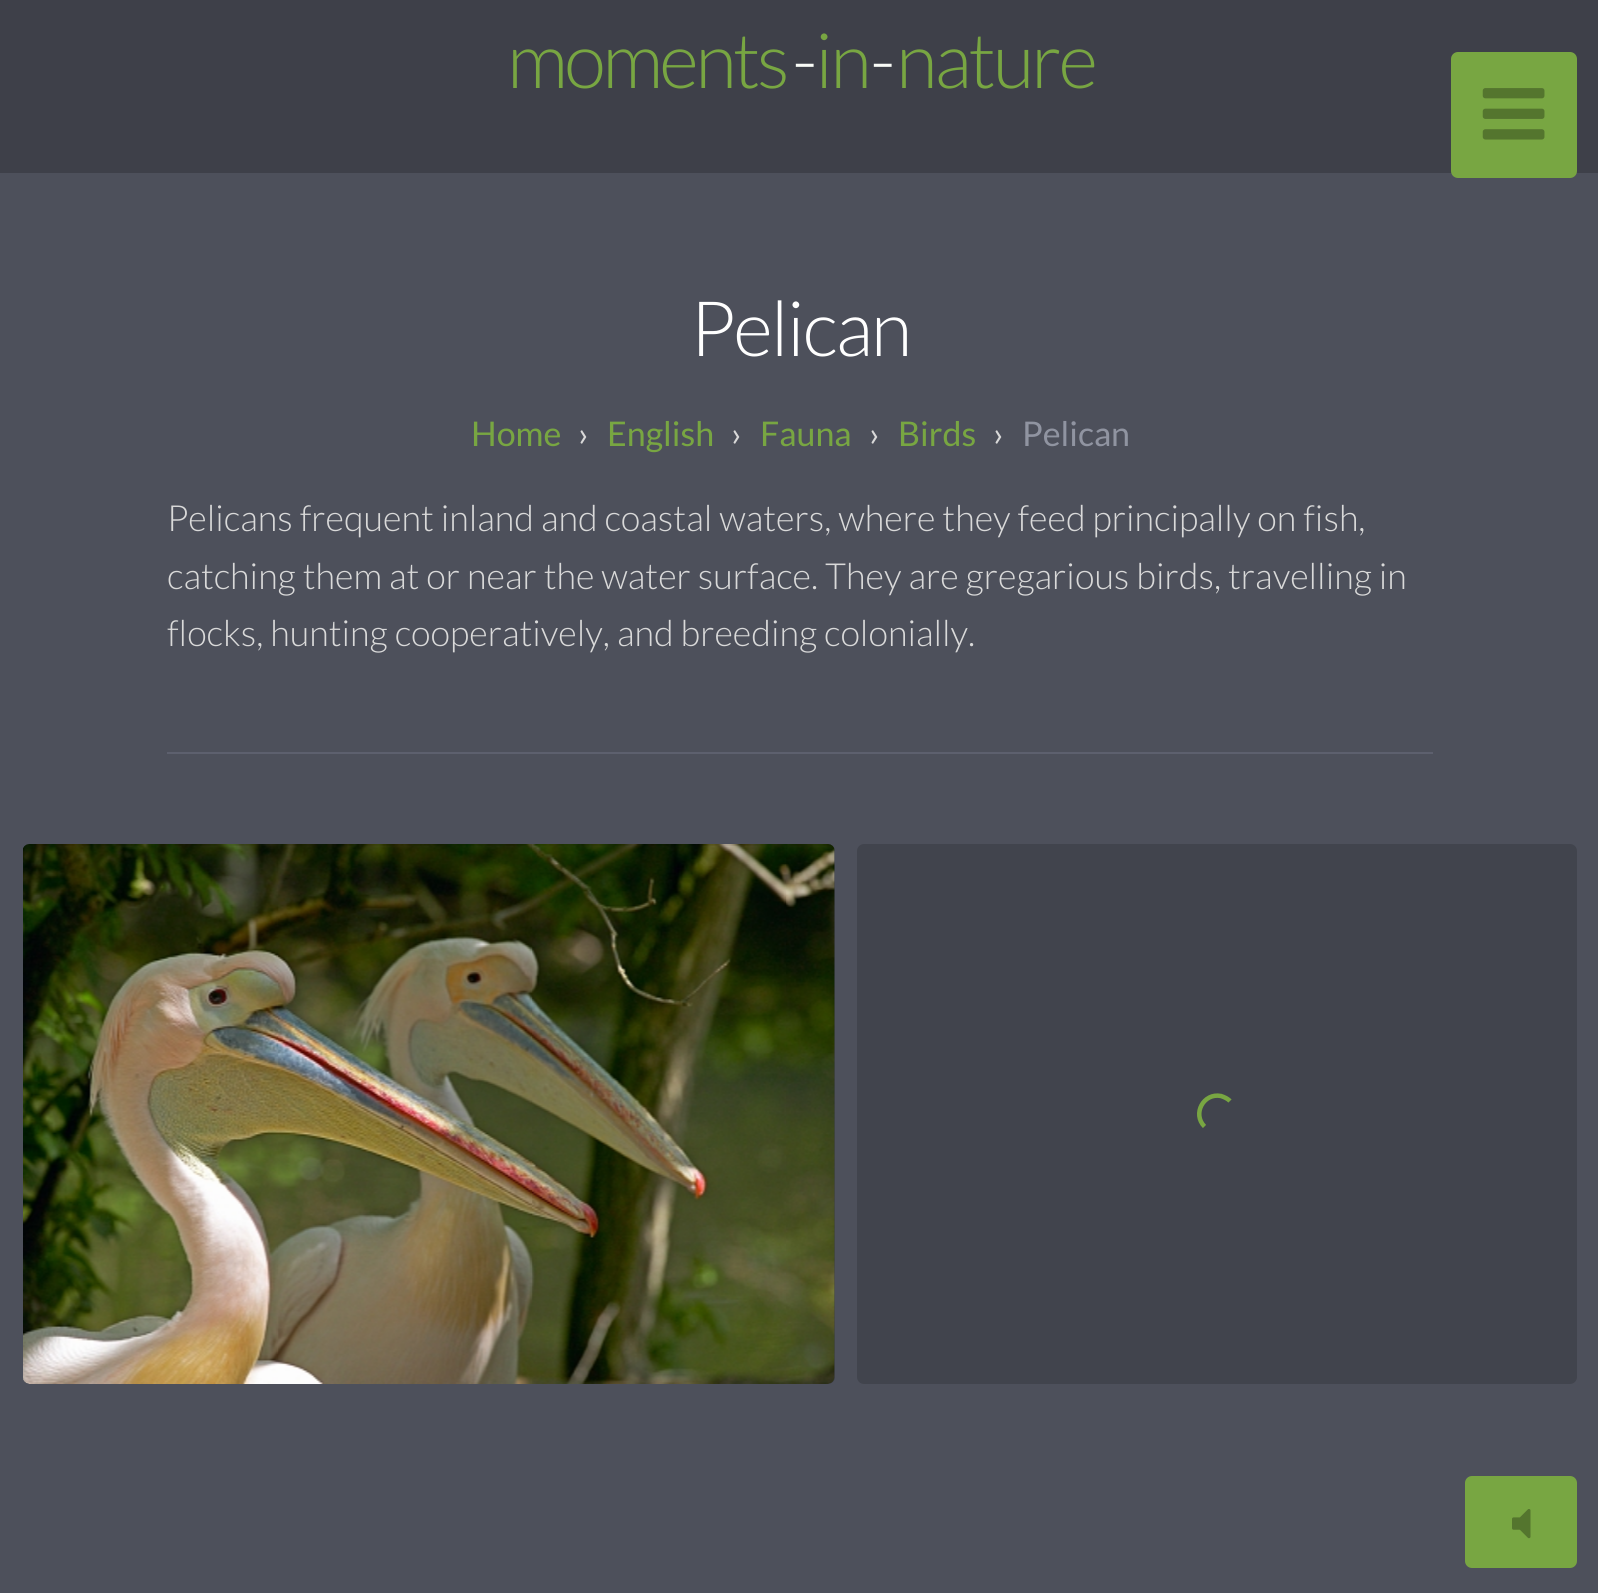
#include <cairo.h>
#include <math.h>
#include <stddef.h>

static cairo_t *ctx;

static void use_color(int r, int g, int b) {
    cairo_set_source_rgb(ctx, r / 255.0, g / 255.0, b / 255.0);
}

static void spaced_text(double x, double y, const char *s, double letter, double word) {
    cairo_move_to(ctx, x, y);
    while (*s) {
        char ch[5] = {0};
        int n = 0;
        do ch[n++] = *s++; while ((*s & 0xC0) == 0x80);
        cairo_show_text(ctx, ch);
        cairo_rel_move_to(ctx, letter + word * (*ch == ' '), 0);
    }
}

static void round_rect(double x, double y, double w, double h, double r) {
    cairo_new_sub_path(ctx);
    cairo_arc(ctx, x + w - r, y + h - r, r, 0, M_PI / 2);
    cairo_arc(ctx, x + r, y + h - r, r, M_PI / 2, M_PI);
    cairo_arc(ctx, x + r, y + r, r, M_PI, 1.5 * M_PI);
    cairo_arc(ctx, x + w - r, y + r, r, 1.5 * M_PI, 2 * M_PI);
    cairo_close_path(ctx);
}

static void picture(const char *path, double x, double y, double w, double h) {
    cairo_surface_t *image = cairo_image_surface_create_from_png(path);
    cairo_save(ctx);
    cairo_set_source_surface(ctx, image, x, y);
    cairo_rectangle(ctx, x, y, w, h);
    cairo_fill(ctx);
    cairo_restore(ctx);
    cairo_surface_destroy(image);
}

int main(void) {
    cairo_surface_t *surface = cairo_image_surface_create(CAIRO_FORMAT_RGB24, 1598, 1593);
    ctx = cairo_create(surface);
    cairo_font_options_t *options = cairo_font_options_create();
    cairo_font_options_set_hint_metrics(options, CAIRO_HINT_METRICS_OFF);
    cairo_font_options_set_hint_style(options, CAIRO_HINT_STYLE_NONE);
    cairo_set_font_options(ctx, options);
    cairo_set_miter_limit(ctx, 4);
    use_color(77, 80, 91);
    cairo_paint(ctx);
    use_color(62, 64, 73);
    cairo_rectangle(ctx, 0, 0, 1598, 173);
    cairo_fill(ctx);
    cairo_select_font_face(ctx, "Lato Light", CAIRO_FONT_SLANT_NORMAL, CAIRO_FONT_WEIGHT_NORMAL);
    cairo_set_font_size(ctx, 76.5);
    use_color(120, 166, 66);
    spaced_text(507, 88, "moments", -3.5, 0);
    use_color(249, 251, 247);
    spaced_text(792, 88, "-", -3, 0);
    use_color(120, 166, 66);
    spaced_text(815, 88, "in", -3, 0);
    use_color(249, 251, 247);
    spaced_text(870, 88, "-", -3, 0);
    use_color(120, 166, 66);
    spaced_text(896, 88, "nature", -3, 0);
    use_color(255, 255, 255);
    spaced_text(690, 356, "Pelican", -2, 0);
    cairo_select_font_face(ctx, "Lato", CAIRO_FONT_SLANT_NORMAL, CAIRO_FONT_WEIGHT_NORMAL);
    cairo_set_font_size(ctx, 34);
    use_color(120, 166, 66);
    cairo_move_to(ctx, 471, 446);
    cairo_show_text(ctx, "Home");
    use_color(217, 217, 217);
    cairo_move_to(ctx, 578, 446);
    cairo_show_text(ctx, "›");
    use_color(120, 166, 66);
    cairo_move_to(ctx, 607, 446);
    cairo_show_text(ctx, "English");
    use_color(217, 217, 217);
    cairo_move_to(ctx, 731, 446);
    cairo_show_text(ctx, "›");
    use_color(120, 166, 66);
    cairo_move_to(ctx, 760, 446);
    cairo_show_text(ctx, "Fauna");
    use_color(217, 217, 217);
    cairo_move_to(ctx, 869, 446);
    cairo_show_text(ctx, "›");
    use_color(120, 166, 66);
    cairo_move_to(ctx, 898, 446);
    cairo_show_text(ctx, "Birds");
    use_color(217, 217, 217);
    cairo_move_to(ctx, 993, 446);
    cairo_show_text(ctx, "›");
    use_color(144, 148, 161);
    cairo_move_to(ctx, 1022, 446);
    cairo_show_text(ctx, "Pelican");
    cairo_select_font_face(ctx, "Lato Light", CAIRO_FONT_SLANT_NORMAL, CAIRO_FONT_WEIGHT_NORMAL);
    cairo_set_font_size(ctx, 36);
    use_color(217, 217, 217);
    cairo_move_to(ctx, 167, 531);
    cairo_show_text(ctx, "Pelicans frequent inland and coastal waters, where they feed principally on fish,");
    cairo_move_to(ctx, 167, 589);
    cairo_show_text(ctx, "catching them at or near the water surface. They are gregarious birds, travelling in");
    cairo_move_to(ctx, 167, 646);
    cairo_show_text(ctx, "flocks, hunting cooperatively, and breeding colonially.");
    use_color(93, 96, 110);
    cairo_rectangle(ctx, 167, 752, 1266, 2);
    cairo_fill(ctx);
    use_color(65, 68, 77);
    round_rect(23, 844, 812, 540, 7);
    cairo_fill(ctx);
    picture("img1.png", 23, 844, 812, 540);
    round_rect(857, 844, 720, 540, 7);
    cairo_fill(ctx);
    cairo_new_path(ctx);
    cairo_move_to(ctx, 1204.5, 1126.5);
    cairo_curve_to(ctx, 1192, 1114, 1203.5, 1092.5, 1221, 1096);
    cairo_curve_to(ctx, 1224, 1097, 1227.5, 1098.5, 1230, 1101);
    use_color(120, 166, 66);
    cairo_set_line_width(ctx, 4.5);
    cairo_stroke(ctx);
    round_rect(1451, 52, 126, 126, 7);
    cairo_fill(ctx);
    picture("img2.png", 1482, 88, 63, 52);
    round_rect(1465, 1476, 112, 92, 7);
    cairo_fill(ctx);
    picture("img3.png", 1512, 1509, 19, 30);
    cairo_surface_write_to_png(surface, "result.png");
    cairo_font_options_destroy(options);
    cairo_destroy(ctx);
    cairo_surface_destroy(surface);
    return 0;
}
